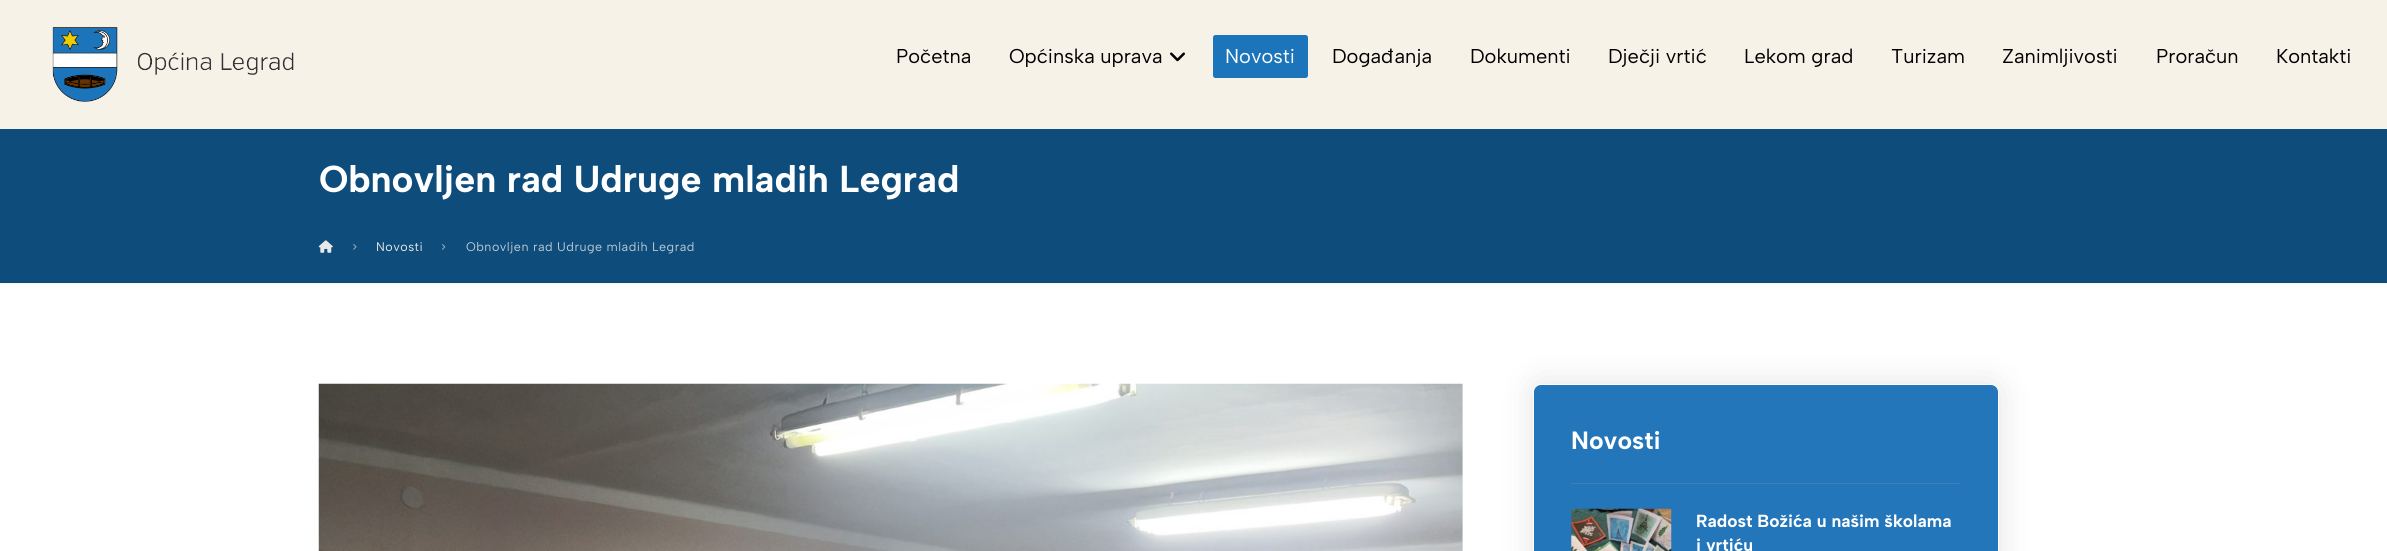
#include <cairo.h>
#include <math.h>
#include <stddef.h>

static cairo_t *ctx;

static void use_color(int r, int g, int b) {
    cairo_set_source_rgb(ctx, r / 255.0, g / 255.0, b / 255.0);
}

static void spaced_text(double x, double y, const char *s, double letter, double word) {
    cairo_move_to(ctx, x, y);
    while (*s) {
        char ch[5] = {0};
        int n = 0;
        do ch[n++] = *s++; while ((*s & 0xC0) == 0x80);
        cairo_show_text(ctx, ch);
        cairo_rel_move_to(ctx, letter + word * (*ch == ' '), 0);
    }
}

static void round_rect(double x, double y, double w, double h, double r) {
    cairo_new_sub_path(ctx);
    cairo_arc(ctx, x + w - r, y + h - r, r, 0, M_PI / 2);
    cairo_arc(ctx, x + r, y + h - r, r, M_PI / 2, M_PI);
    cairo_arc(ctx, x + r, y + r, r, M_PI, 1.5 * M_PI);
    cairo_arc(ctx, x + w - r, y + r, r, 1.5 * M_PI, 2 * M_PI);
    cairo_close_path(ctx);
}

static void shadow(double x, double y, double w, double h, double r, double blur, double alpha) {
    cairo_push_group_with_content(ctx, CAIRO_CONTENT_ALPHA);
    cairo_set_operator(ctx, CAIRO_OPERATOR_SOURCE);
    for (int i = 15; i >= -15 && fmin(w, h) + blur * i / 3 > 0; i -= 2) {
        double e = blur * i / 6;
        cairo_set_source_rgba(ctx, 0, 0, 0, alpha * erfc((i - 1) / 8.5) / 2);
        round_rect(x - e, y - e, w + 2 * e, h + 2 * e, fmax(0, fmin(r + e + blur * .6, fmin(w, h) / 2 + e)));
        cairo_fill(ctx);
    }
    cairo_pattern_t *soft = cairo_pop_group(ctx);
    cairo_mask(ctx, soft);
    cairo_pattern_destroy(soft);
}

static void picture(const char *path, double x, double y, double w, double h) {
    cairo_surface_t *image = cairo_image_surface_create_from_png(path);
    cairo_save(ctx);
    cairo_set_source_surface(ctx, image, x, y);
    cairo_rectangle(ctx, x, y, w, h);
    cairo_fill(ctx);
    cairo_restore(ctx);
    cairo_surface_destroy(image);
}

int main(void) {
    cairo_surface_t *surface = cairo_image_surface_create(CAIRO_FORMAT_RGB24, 2387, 551);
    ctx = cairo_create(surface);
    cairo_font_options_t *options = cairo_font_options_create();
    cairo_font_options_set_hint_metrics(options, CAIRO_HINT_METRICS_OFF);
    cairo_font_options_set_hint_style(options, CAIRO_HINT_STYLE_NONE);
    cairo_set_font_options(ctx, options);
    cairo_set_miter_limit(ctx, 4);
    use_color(255, 255, 255);
    cairo_paint(ctx);
    use_color(246, 242, 232);
    cairo_rectangle(ctx, 0, 0, 2387, 129);
    cairo_fill(ctx);
    picture("img1.png", 52, 27, 242, 75);
    cairo_select_font_face(ctx, "Albert Sans", CAIRO_FONT_SLANT_NORMAL, CAIRO_FONT_WEIGHT_NORMAL);
    cairo_set_font_size(ctx, 20);
    use_color(0, 0, 0);
    cairo_move_to(ctx, 896, 63);
    cairo_show_text(ctx, "Početna");
    cairo_move_to(ctx, 1009, 63);
    cairo_show_text(ctx, "Općinska uprava");
    picture("img2.png", 1170, 52, 15, 10);
    use_color(28, 117, 187);
    round_rect(1213, 35, 95, 43, 2.5);
    cairo_fill(ctx);
    use_color(255, 255, 255);
    cairo_move_to(ctx, 1225, 63);
    cairo_show_text(ctx, "Novosti");
    use_color(0, 0, 0);
    cairo_move_to(ctx, 1332, 63);
    cairo_show_text(ctx, "Događanja");
    cairo_move_to(ctx, 1470, 63);
    cairo_show_text(ctx, "Dokumenti");
    cairo_move_to(ctx, 1608, 63);
    cairo_show_text(ctx, "Dječji vrtić");
    cairo_move_to(ctx, 1744, 63);
    cairo_show_text(ctx, "Lekom grad");
    cairo_move_to(ctx, 1891, 63);
    cairo_show_text(ctx, "Turizam");
    cairo_move_to(ctx, 2002, 63);
    cairo_show_text(ctx, "Zanimljivosti");
    cairo_move_to(ctx, 2156, 63);
    cairo_show_text(ctx, "Proračun");
    cairo_move_to(ctx, 2276, 63);
    cairo_show_text(ctx, "Kontakti");
    use_color(13, 76, 123);
    cairo_rectangle(ctx, 0, 129, 2387, 154);
    cairo_fill(ctx);
    use_color(244, 244, 244);
    cairo_rectangle(ctx, 0, 283, 2387, 1);
    cairo_fill(ctx);
    cairo_select_font_face(ctx, "Albert Sans", CAIRO_FONT_SLANT_NORMAL, CAIRO_FONT_WEIGHT_BOLD);
    cairo_set_font_size(ctx, 37.5);
    use_color(255, 255, 255);
    cairo_move_to(ctx, 319, 192);
    cairo_show_text(ctx, "Obnovljen rad Udruge mladih Legrad");
    picture("img3.png", 318, 240, 15, 13);
    picture("img4.png", 353, 244, 4, 6);
    cairo_select_font_face(ctx, "Albert Sans", CAIRO_FONT_SLANT_NORMAL, CAIRO_FONT_WEIGHT_NORMAL);
    cairo_set_font_size(ctx, 12.5);
    use_color(232, 232, 232);
    spaced_text(376, 251, "Novosti", 0.5, 0);
    picture("img5.png", 442, 244, 4, 6);
    use_color(188, 201, 210);
    spaced_text(466, 251, "Obnovljen rad Udruge mladih Legrad", 0.5, 0);
    use_color(238, 238, 238);
    cairo_rectangle(ctx, 1462, 384, 1, 167);
    cairo_fill(ctx);
    picture("img6.png", 318, 383, 1145, 168);
    use_color(0, 0, 0);
    shadow(1533, 384, 466, 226, 8, 17, 0.11);
    use_color(35, 118, 185);
    round_rect(1533.5, 384.5, 465, 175, 7.5);
    cairo_fill_preserve(ctx);
    use_color(255, 255, 255);
    cairo_set_line_width(ctx, 1);
    cairo_stroke(ctx);
    use_color(61, 128, 181);
    cairo_rectangle(ctx, 1571, 483, 389, 1);
    cairo_fill(ctx);
    cairo_select_font_face(ctx, "Albert Sans", CAIRO_FONT_SLANT_NORMAL, CAIRO_FONT_WEIGHT_BOLD);
    cairo_set_font_size(ctx, 25);
    use_color(255, 255, 255);
    cairo_move_to(ctx, 1571, 449);
    cairo_show_text(ctx, "Novosti");
    picture("img7.png", 1571, 508, 101, 43);
    cairo_set_font_size(ctx, 17.5);
    cairo_move_to(ctx, 1696, 527);
    cairo_show_text(ctx, "Radost Božića u našim školama");
    cairo_move_to(ctx, 1696, 551);
    cairo_show_text(ctx, "i vrtiću");
    cairo_surface_write_to_png(surface, "result.png");
    cairo_font_options_destroy(options);
    cairo_destroy(ctx);
    cairo_surface_destroy(surface);
    return 0;
}
